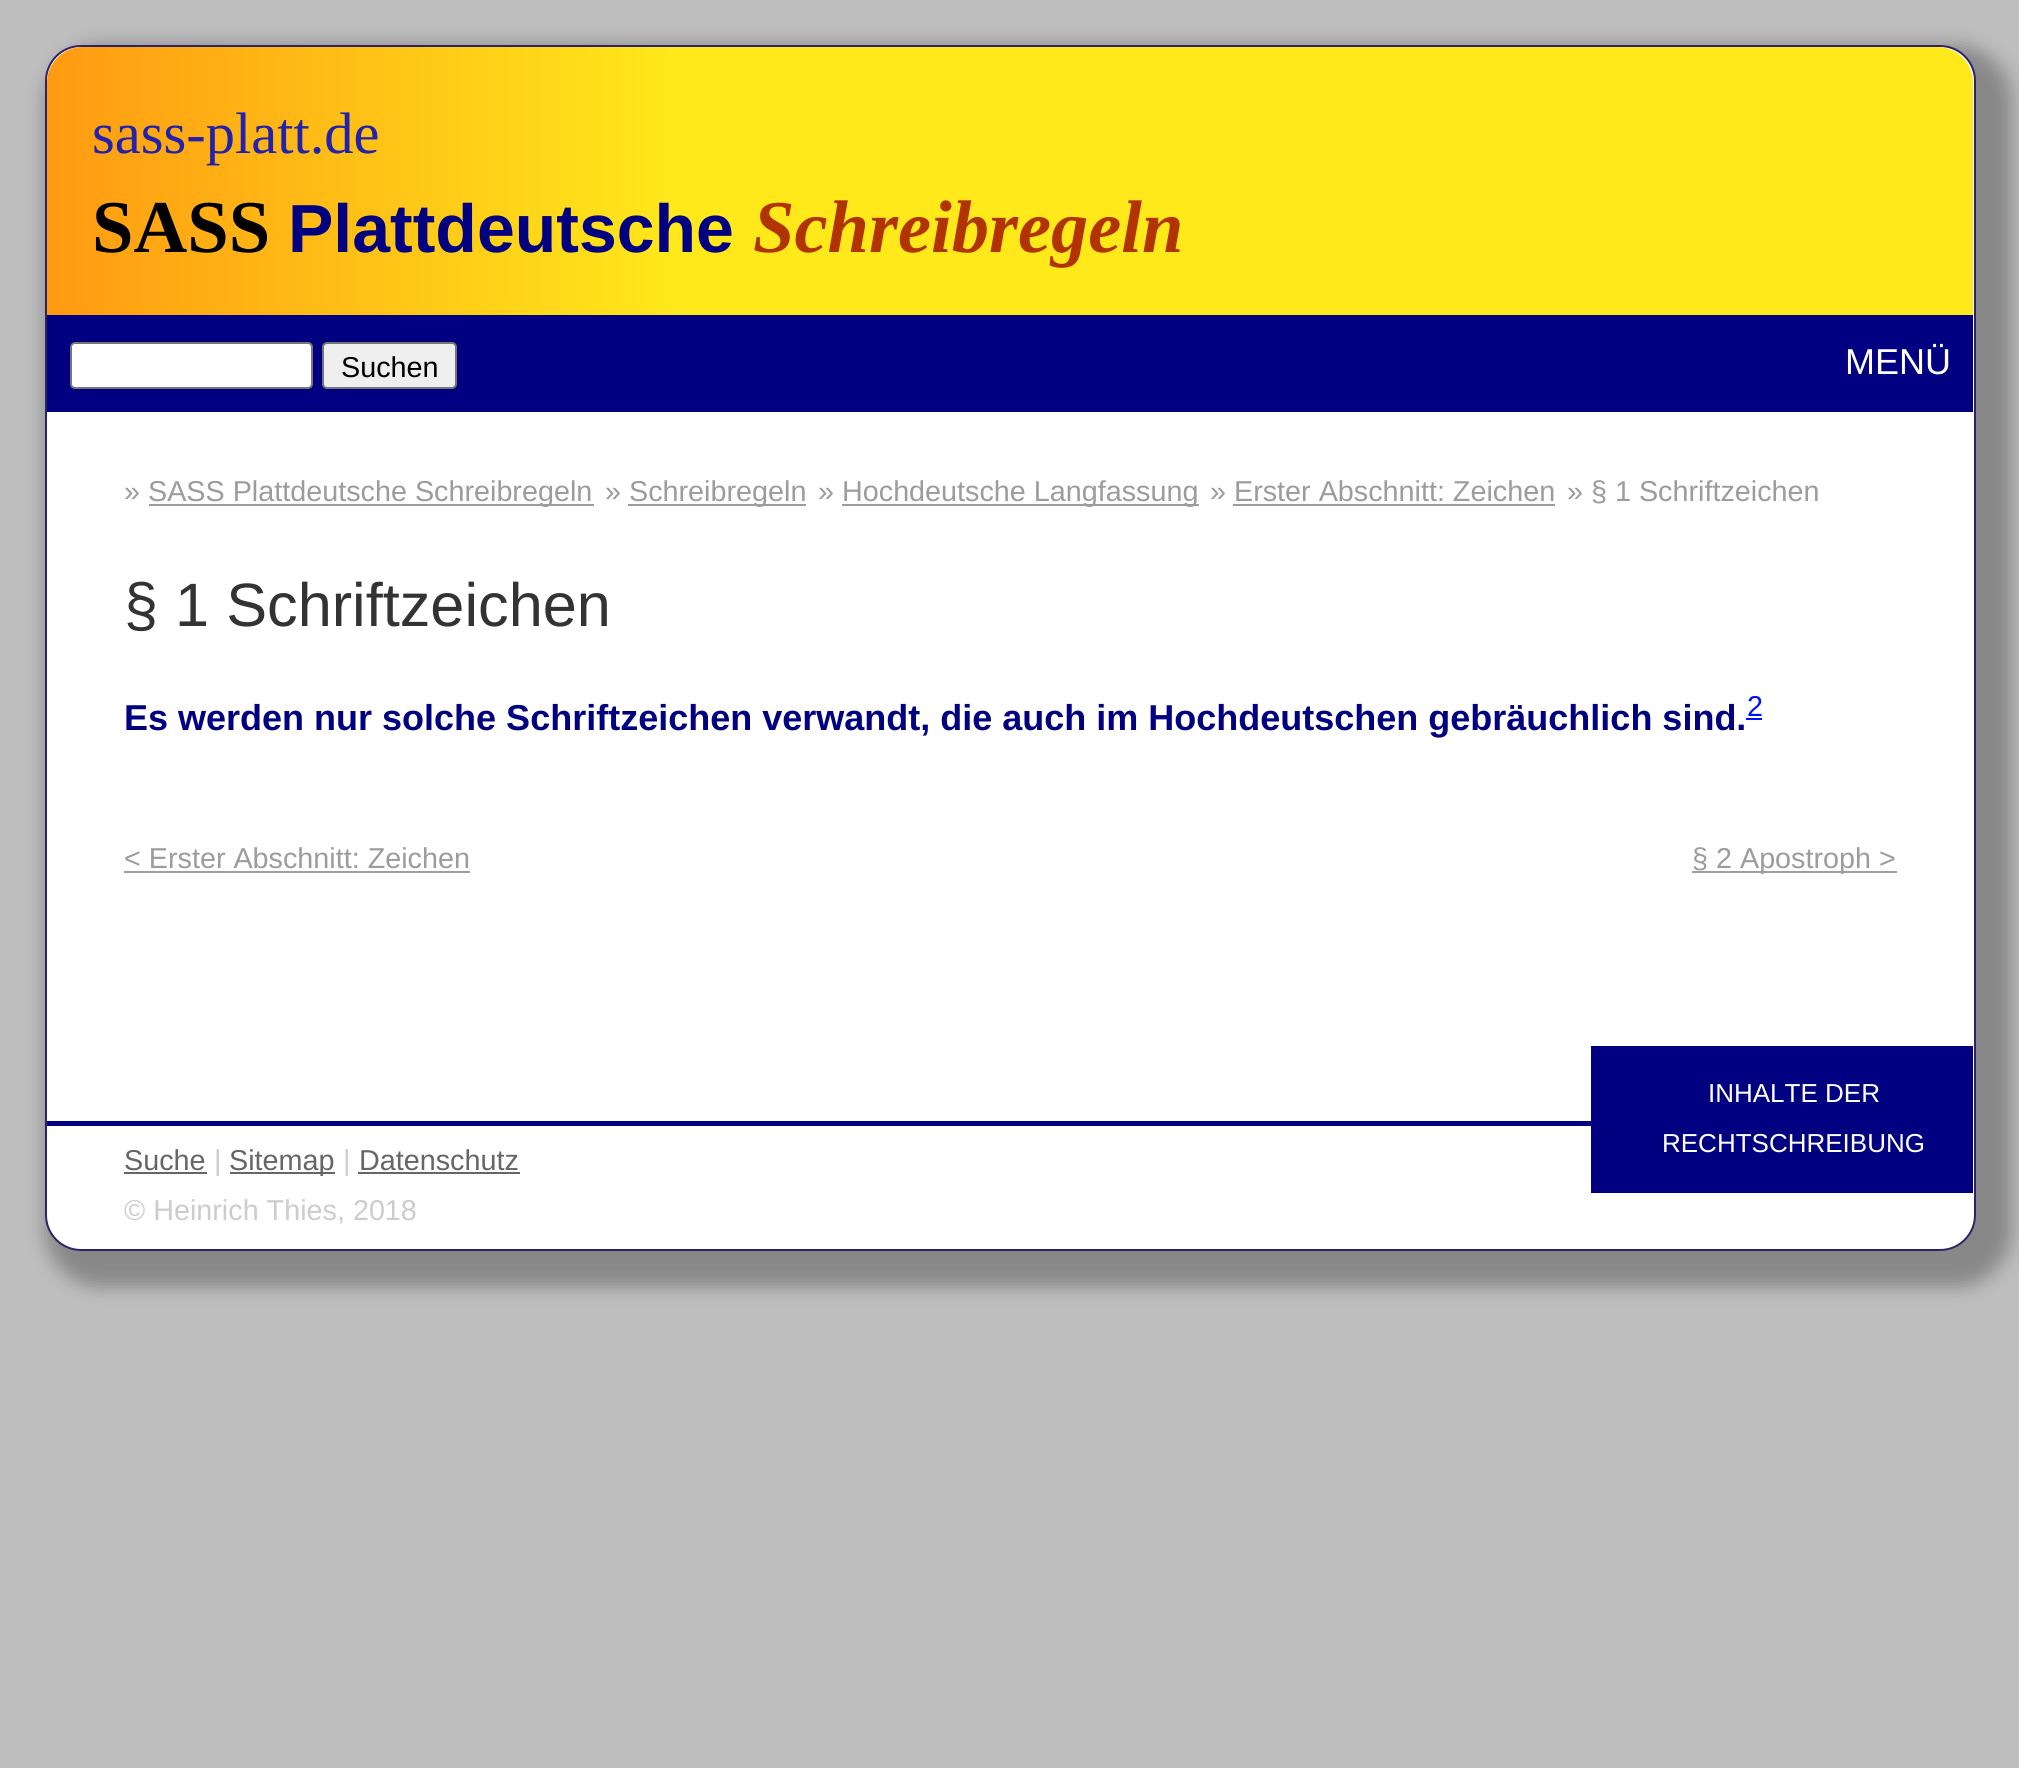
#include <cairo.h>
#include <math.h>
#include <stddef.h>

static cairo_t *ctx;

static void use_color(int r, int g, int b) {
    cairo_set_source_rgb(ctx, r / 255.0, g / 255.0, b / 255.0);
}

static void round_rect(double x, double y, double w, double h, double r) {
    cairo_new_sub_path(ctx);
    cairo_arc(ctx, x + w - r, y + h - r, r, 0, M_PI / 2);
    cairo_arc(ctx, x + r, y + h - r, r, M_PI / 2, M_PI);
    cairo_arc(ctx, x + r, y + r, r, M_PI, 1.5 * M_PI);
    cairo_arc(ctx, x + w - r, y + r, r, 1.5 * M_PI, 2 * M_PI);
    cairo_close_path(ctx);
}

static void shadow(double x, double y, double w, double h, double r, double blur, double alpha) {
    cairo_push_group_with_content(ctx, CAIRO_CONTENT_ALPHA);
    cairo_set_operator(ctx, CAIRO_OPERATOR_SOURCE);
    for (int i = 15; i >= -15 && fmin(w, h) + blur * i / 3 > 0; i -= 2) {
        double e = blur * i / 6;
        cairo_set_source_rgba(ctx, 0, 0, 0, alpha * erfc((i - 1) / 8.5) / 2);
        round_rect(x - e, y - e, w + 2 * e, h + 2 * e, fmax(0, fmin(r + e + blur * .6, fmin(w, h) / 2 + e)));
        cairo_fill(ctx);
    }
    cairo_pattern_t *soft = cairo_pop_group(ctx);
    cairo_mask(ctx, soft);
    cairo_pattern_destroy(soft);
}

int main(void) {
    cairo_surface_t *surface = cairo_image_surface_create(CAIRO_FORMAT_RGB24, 2019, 1768);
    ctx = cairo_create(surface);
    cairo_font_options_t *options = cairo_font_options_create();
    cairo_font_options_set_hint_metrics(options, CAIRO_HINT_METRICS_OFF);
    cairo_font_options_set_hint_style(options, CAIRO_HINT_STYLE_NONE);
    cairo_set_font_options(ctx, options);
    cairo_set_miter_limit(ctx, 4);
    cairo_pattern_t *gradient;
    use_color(190, 190, 190);
    cairo_paint(ctx);
    use_color(136, 136, 136);
    shadow(45, 45, 1967, 1242, 54, 9, 1);
    use_color(255, 255, 255);
    round_rect(46, 46, 1929, 1204, 35);
    cairo_fill_preserve(ctx);
    use_color(45, 35, 104);
    cairo_stroke(ctx);
    gradient = cairo_pattern_create_linear(47, 230, 1973, 229);
    cairo_pattern_add_color_stop_rgba(gradient, 0, 1, 0.604, 0.071, 1);
    cairo_pattern_add_color_stop_rgba(gradient, 0.33, 1, 0.914, 0.106, 1);
    cairo_pattern_add_color_stop_rgba(gradient, 1, 1, 0.914, 0.106, 1);
    cairo_set_source(ctx, gradient);
    cairo_pattern_destroy(gradient);
    cairo_new_path(ctx);
    cairo_move_to(ctx, 83, 47);
    cairo_line_to(ctx, 1937, 47);
    cairo_curve_to(ctx, 1957, 47, 1973, 63, 1973, 83);
    cairo_line_to(ctx, 1973, 412);
    cairo_line_to(ctx, 47, 412);
    cairo_line_to(ctx, 47, 83);
    cairo_curve_to(ctx, 47, 63, 63, 47, 83, 47);
    cairo_close_path(ctx);
    cairo_fill(ctx);
    cairo_select_font_face(ctx, "Liberation Serif", CAIRO_FONT_SLANT_NORMAL, CAIRO_FONT_WEIGHT_NORMAL);
    cairo_set_font_size(ctx, 58.5);
    use_color(34, 34, 170);
    cairo_move_to(ctx, 92, 153);
    cairo_show_text(ctx, "sass-platt.de");
    cairo_select_font_face(ctx, "Liberation Serif", CAIRO_FONT_SLANT_NORMAL, CAIRO_FONT_WEIGHT_BOLD);
    cairo_set_font_size(ctx, 74.5);
    use_color(0, 0, 0);
    cairo_move_to(ctx, 92, 252);
    cairo_show_text(ctx, "SASS");
    cairo_select_font_face(ctx, "Liberation Sans", CAIRO_FONT_SLANT_NORMAL, CAIRO_FONT_WEIGHT_BOLD);
    cairo_set_font_size(ctx, 68);
    use_color(0, 0, 128);
    cairo_move_to(ctx, 288, 252);
    cairo_show_text(ctx, "Plattdeutsche");
    cairo_select_font_face(ctx, "Liberation Serif", CAIRO_FONT_SLANT_ITALIC, CAIRO_FONT_WEIGHT_BOLD);
    cairo_set_font_size(ctx, 74.5);
    use_color(177, 52, 0);
    cairo_move_to(ctx, 753, 252);
    cairo_show_text(ctx, "Schreibregeln");
    use_color(0, 0, 128);
    cairo_rectangle(ctx, 47, 315, 1926, 97);
    cairo_fill(ctx);
    use_color(255, 255, 255);
    round_rect(71, 343, 241, 45, 4);
    cairo_fill_preserve(ctx);
    use_color(118, 118, 118);
    cairo_stroke(ctx);
    use_color(239, 239, 239);
    round_rect(323, 343, 133, 45, 4);
    cairo_fill_preserve(ctx);
    use_color(118, 118, 118);
    cairo_stroke(ctx);
    cairo_select_font_face(ctx, "Liberation Sans", CAIRO_FONT_SLANT_NORMAL, CAIRO_FONT_WEIGHT_NORMAL);
    cairo_set_font_size(ctx, 28.75);
    use_color(0, 0, 0);
    cairo_move_to(ctx, 341, 377);
    cairo_show_text(ctx, "Suchen");
    cairo_set_font_size(ctx, 36);
    use_color(255, 255, 255);
    cairo_move_to(ctx, 1845, 374);
    cairo_show_text(ctx, "MENÜ");
    cairo_set_font_size(ctx, 28.75);
    use_color(156, 156, 156);
    cairo_move_to(ctx, 124, 501);
    cairo_show_text(ctx, "»");
    cairo_rectangle(ctx, 149, 504, 445, 2);
    cairo_fill(ctx);
    cairo_move_to(ctx, 148, 501);
    cairo_show_text(ctx, "SASS Plattdeutsche Schreibregeln");
    cairo_move_to(ctx, 605, 501);
    cairo_show_text(ctx, "»");
    cairo_rectangle(ctx, 628, 504, 178, 2);
    cairo_fill(ctx);
    cairo_move_to(ctx, 629, 501);
    cairo_show_text(ctx, "Schreibregeln");
    cairo_move_to(ctx, 818, 501);
    cairo_show_text(ctx, "»");
    cairo_rectangle(ctx, 842, 504, 357, 2);
    cairo_fill(ctx);
    cairo_move_to(ctx, 842, 501);
    cairo_show_text(ctx, "Hochdeutsche Langfassung");
    cairo_move_to(ctx, 1210, 501);
    cairo_show_text(ctx, "» Erster Abschnitt: Zeichen");
    cairo_rectangle(ctx, 1233, 504, 322, 2);
    cairo_fill(ctx);
    cairo_move_to(ctx, 1567, 501);
    cairo_show_text(ctx, "» § 1 Schriftzeichen");
    cairo_set_font_size(ctx, 61.25);
    use_color(51, 51, 51);
    cairo_move_to(ctx, 124, 626);
    cairo_show_text(ctx, "§ 1 Schriftzeichen");
    cairo_select_font_face(ctx, "Liberation Sans", CAIRO_FONT_SLANT_NORMAL, CAIRO_FONT_WEIGHT_BOLD);
    cairo_set_font_size(ctx, 36);
    use_color(0, 0, 128);
    cairo_move_to(ctx, 124, 730);
    cairo_show_text(ctx, "Es werden nur solche Schriftzeichen verwandt, die auch im Hochdeutschen gebräuchlich sind.");
    cairo_select_font_face(ctx, "Liberation Sans", CAIRO_FONT_SLANT_NORMAL, CAIRO_FONT_WEIGHT_NORMAL);
    cairo_set_font_size(ctx, 28.75);
    use_color(0, 16, 255);
    cairo_move_to(ctx, 1747, 716);
    cairo_show_text(ctx, "2");
    cairo_rectangle(ctx, 1746, 718, 16, 2);
    cairo_fill(ctx);
    use_color(156, 156, 156);
    cairo_move_to(ctx, 124, 868);
    cairo_show_text(ctx, "< Erster Abschnitt: Zeichen");
    use_color(158, 158, 158);
    cairo_rectangle(ctx, 124, 871, 346, 2);
    cairo_fill(ctx);
    cairo_rectangle(ctx, 1692, 871, 205, 2);
    cairo_fill(ctx);
    use_color(156, 156, 156);
    cairo_move_to(ctx, 1692, 868);
    cairo_show_text(ctx, "§ 2 Apostroph >");
    use_color(0, 0, 128);
    cairo_rectangle(ctx, 47, 1121, 1544, 5);
    cairo_fill(ctx);
    cairo_rectangle(ctx, 1591, 1046, 382, 147);
    cairo_fill(ctx);
    cairo_set_font_size(ctx, 26);
    use_color(255, 255, 255);
    cairo_move_to(ctx, 1708, 1102);
    cairo_show_text(ctx, "INHALTE DER");
    cairo_move_to(ctx, 1662, 1152);
    cairo_show_text(ctx, "RECHTSCHREIBUNG");
    cairo_set_font_size(ctx, 28.75);
    use_color(102, 102, 102);
    cairo_move_to(ctx, 124, 1170);
    cairo_show_text(ctx, "Suche");
    cairo_rectangle(ctx, 124, 1172, 83, 2);
    cairo_fill(ctx);
    use_color(204, 204, 204);
    cairo_move_to(ctx, 214, 1170);
    cairo_show_text(ctx, "|");
    use_color(102, 102, 102);
    cairo_rectangle(ctx, 230, 1172, 105, 2);
    cairo_fill(ctx);
    cairo_move_to(ctx, 229, 1170);
    cairo_show_text(ctx, "Sitemap");
    use_color(204, 204, 204);
    cairo_move_to(ctx, 343, 1170);
    cairo_show_text(ctx, "|");
    use_color(102, 102, 102);
    cairo_move_to(ctx, 359, 1170);
    cairo_show_text(ctx, "Datenschutz");
    cairo_rectangle(ctx, 358, 1172, 162, 2);
    cairo_fill(ctx);
    use_color(204, 204, 204);
    cairo_move_to(ctx, 124, 1220);
    cairo_show_text(ctx, "© Heinrich Thies, 2018");
    cairo_surface_write_to_png(surface, "result.png");
    cairo_font_options_destroy(options);
    cairo_destroy(ctx);
    cairo_surface_destroy(surface);
    return 0;
}
